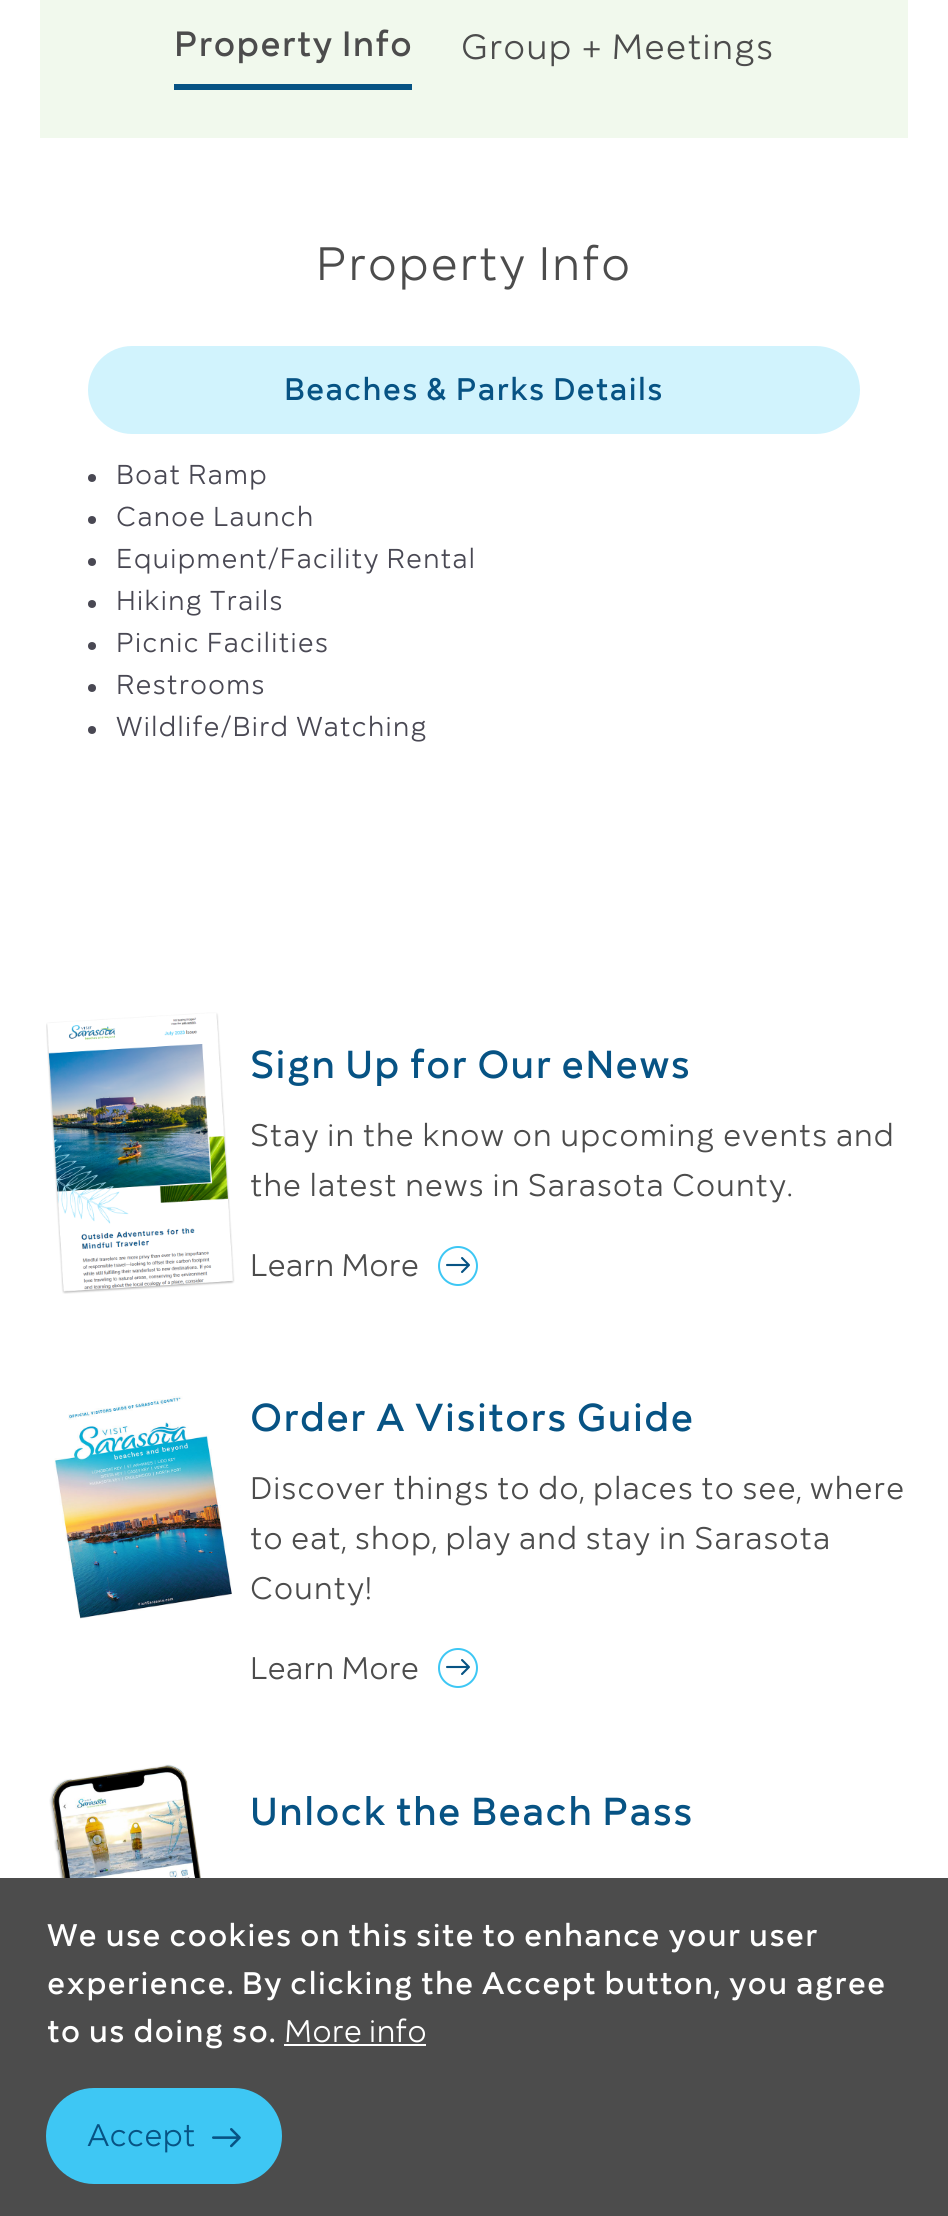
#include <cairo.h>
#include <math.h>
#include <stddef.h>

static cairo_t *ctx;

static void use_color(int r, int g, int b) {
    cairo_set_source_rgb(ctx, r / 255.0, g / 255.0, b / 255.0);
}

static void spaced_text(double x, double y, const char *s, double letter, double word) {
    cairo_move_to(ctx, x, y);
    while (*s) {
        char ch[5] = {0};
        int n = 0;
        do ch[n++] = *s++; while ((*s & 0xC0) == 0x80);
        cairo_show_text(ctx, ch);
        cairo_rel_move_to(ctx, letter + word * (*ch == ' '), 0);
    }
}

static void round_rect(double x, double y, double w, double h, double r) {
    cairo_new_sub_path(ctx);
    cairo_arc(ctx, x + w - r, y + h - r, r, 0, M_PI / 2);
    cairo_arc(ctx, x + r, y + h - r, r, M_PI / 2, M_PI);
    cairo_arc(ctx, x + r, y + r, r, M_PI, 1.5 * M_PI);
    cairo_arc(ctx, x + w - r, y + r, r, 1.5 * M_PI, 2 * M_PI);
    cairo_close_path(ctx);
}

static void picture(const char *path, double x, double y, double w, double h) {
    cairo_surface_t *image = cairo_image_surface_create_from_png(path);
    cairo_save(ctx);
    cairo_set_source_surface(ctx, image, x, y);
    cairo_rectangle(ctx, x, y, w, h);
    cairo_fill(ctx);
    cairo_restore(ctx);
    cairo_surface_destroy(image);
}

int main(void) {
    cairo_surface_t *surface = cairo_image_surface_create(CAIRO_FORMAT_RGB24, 948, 2216);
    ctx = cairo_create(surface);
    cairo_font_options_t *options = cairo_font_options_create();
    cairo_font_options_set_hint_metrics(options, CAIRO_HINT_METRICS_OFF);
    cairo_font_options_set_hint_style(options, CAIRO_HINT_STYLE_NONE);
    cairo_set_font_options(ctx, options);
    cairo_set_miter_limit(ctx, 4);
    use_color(255, 255, 255);
    cairo_paint(ctx);
    use_color(241, 249, 237);
    cairo_rectangle(ctx, 40, 0, 868, 138);
    cairo_fill(ctx);
    use_color(7, 83, 132);
    cairo_rectangle(ctx, 174, 84, 238, 6);
    cairo_fill(ctx);
    cairo_select_font_face(ctx, "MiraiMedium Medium", CAIRO_FONT_SLANT_NORMAL, CAIRO_FONT_WEIGHT_NORMAL);
    cairo_set_font_size(ctx, 36);
    use_color(76, 76, 76);
    spaced_text(174, 56, "Property Info", 0.95, 0);
    cairo_select_font_face(ctx, "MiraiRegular", CAIRO_FONT_SLANT_NORMAL, CAIRO_FONT_WEIGHT_NORMAL);
    spaced_text(461, 59, "Group + Meetings", 0.95, 0);
    cairo_set_font_size(ctx, 48);
    spaced_text(316, 280, "Property Info", 1.5, 0);
    use_color(209, 243, 253);
    round_rect(88, 346, 772, 88, 44);
    cairo_fill(ctx);
    cairo_select_font_face(ctx, "MiraiMedium Medium", CAIRO_FONT_SLANT_NORMAL, CAIRO_FONT_WEIGHT_NORMAL);
    cairo_set_font_size(ctx, 32);
    use_color(7, 83, 132);
    spaced_text(284, 400, "Beaches & Parks Details", 0.95, 0);
    use_color(73, 72, 83);
    cairo_new_path(ctx);
    cairo_arc(ctx, 92, 478, 4, 0, 2 * M_PI);
    cairo_fill(ctx);
    cairo_select_font_face(ctx, "MiraiRegular", CAIRO_FONT_SLANT_NORMAL, CAIRO_FONT_WEIGHT_NORMAL);
    cairo_set_font_size(ctx, 28);
    spaced_text(116, 484, "Boat Ramp", 0.95, 0);
    cairo_new_path(ctx);
    cairo_arc(ctx, 92, 520, 4, 0, 2 * M_PI);
    cairo_fill(ctx);
    spaced_text(116, 526, "Canoe Launch", 0.95, 0);
    cairo_new_path(ctx);
    cairo_arc(ctx, 92, 562, 4, 0, 2 * M_PI);
    cairo_fill(ctx);
    spaced_text(116, 568, "Equipment/Facility Rental", 0.95, 0);
    cairo_new_path(ctx);
    cairo_arc(ctx, 92, 604, 4, 0, 2 * M_PI);
    cairo_fill(ctx);
    spaced_text(116, 610, "Hiking Trails", 0.95, 0);
    cairo_new_path(ctx);
    cairo_arc(ctx, 92, 646, 4, 0, 2 * M_PI);
    cairo_fill(ctx);
    spaced_text(116, 652, "Picnic Facilities", 0.95, 0);
    cairo_new_path(ctx);
    cairo_arc(ctx, 92, 688, 4, 0, 2 * M_PI);
    cairo_fill(ctx);
    spaced_text(116, 694, "Restrooms", 0.95, 0);
    cairo_new_path(ctx);
    cairo_arc(ctx, 92, 730, 4, 0, 2 * M_PI);
    cairo_fill(ctx);
    spaced_text(116, 736, "Wildlife/Bird Watching", 0.95, 0);
    picture("img1.png", 46, 1012, 189, 282);
    cairo_select_font_face(ctx, "MiraiMedium Medium", CAIRO_FONT_SLANT_NORMAL, CAIRO_FONT_WEIGHT_NORMAL);
    cairo_set_font_size(ctx, 40);
    use_color(7, 83, 132);
    spaced_text(250, 1078, "Sign Up for Our eNews", 0.95, 0);
    cairo_select_font_face(ctx, "MiraiRegular", CAIRO_FONT_SLANT_NORMAL, CAIRO_FONT_WEIGHT_NORMAL);
    cairo_set_font_size(ctx, 32);
    use_color(76, 76, 76);
    spaced_text(250, 1146, "Stay in the know on upcoming events and", 0.75, 0);
    spaced_text(250, 1196, "the latest news in Sarasota County.", 0.75, 0);
    cairo_move_to(ctx, 250, 1276);
    cairo_show_text(ctx, "Learn More");
    cairo_new_path(ctx);
    cairo_arc(ctx, 458, 1266, 19, 0, 2 * M_PI);
    use_color(62, 199, 244);
    cairo_stroke(ctx);
    picture("img2.png", 446, 1257, 24, 16);
    picture("img3.png", 54, 1396, 178, 223);
    cairo_select_font_face(ctx, "MiraiMedium Medium", CAIRO_FONT_SLANT_NORMAL, CAIRO_FONT_WEIGHT_NORMAL);
    cairo_set_font_size(ctx, 40);
    use_color(7, 83, 132);
    spaced_text(250, 1431, "Order A Visitors Guide", 0.95, 0);
    cairo_select_font_face(ctx, "MiraiRegular", CAIRO_FONT_SLANT_NORMAL, CAIRO_FONT_WEIGHT_NORMAL);
    cairo_set_font_size(ctx, 32);
    use_color(76, 76, 76);
    spaced_text(250, 1499, "Discover things to do, places to see, where", 0.75, 0);
    spaced_text(250, 1549, "to eat, shop, play and stay in Sarasota", 0.75, 0);
    spaced_text(250, 1599, "County!", 0.75, 0);
    cairo_move_to(ctx, 250, 1679);
    cairo_show_text(ctx, "Learn More");
    cairo_new_path(ctx);
    cairo_arc(ctx, 458, 1668, 19, 0, 2 * M_PI);
    use_color(62, 199, 244);
    cairo_stroke(ctx);
    picture("img2.png", 446, 1659, 24, 16);
    picture("img4.png", 49, 1764, 152, 114);
    cairo_select_font_face(ctx, "MiraiMedium Medium", CAIRO_FONT_SLANT_NORMAL, CAIRO_FONT_WEIGHT_NORMAL);
    cairo_set_font_size(ctx, 40);
    use_color(7, 83, 132);
    spaced_text(250, 1825, "Unlock the Beach Pass", 0.95, 0);
    use_color(76, 76, 76);
    cairo_rectangle(ctx, 0, 1878, 948, 338);
    cairo_fill(ctx);
    cairo_set_font_size(ctx, 32);
    use_color(255, 255, 255);
    spaced_text(47, 1946, "We use cookies on this site to enhance your user", 0.95, 0);
    spaced_text(47, 1994, "experience. By clicking the Accept button, you agree", 0.95, 0);
    spaced_text(47, 2042, "to us doing so.", 0.95, 0);
    cairo_select_font_face(ctx, "MiraiRegular", CAIRO_FONT_SLANT_NORMAL, CAIRO_FONT_WEIGHT_NORMAL);
    cairo_move_to(ctx, 284, 2042);
    cairo_show_text(ctx, "More info");
    cairo_rectangle(ctx, 284, 2044, 142, 2);
    cairo_fill(ctx);
    use_color(62, 199, 244);
    round_rect(46, 2088, 236, 96, 48);
    cairo_fill(ctx);
    use_color(7, 83, 132);
    cairo_move_to(ctx, 87, 2146);
    cairo_show_text(ctx, "Accept");
    picture("img5.png", 212, 2128, 29, 20);
    cairo_surface_write_to_png(surface, "result.png");
    cairo_font_options_destroy(options);
    cairo_destroy(ctx);
    cairo_surface_destroy(surface);
    return 0;
}
